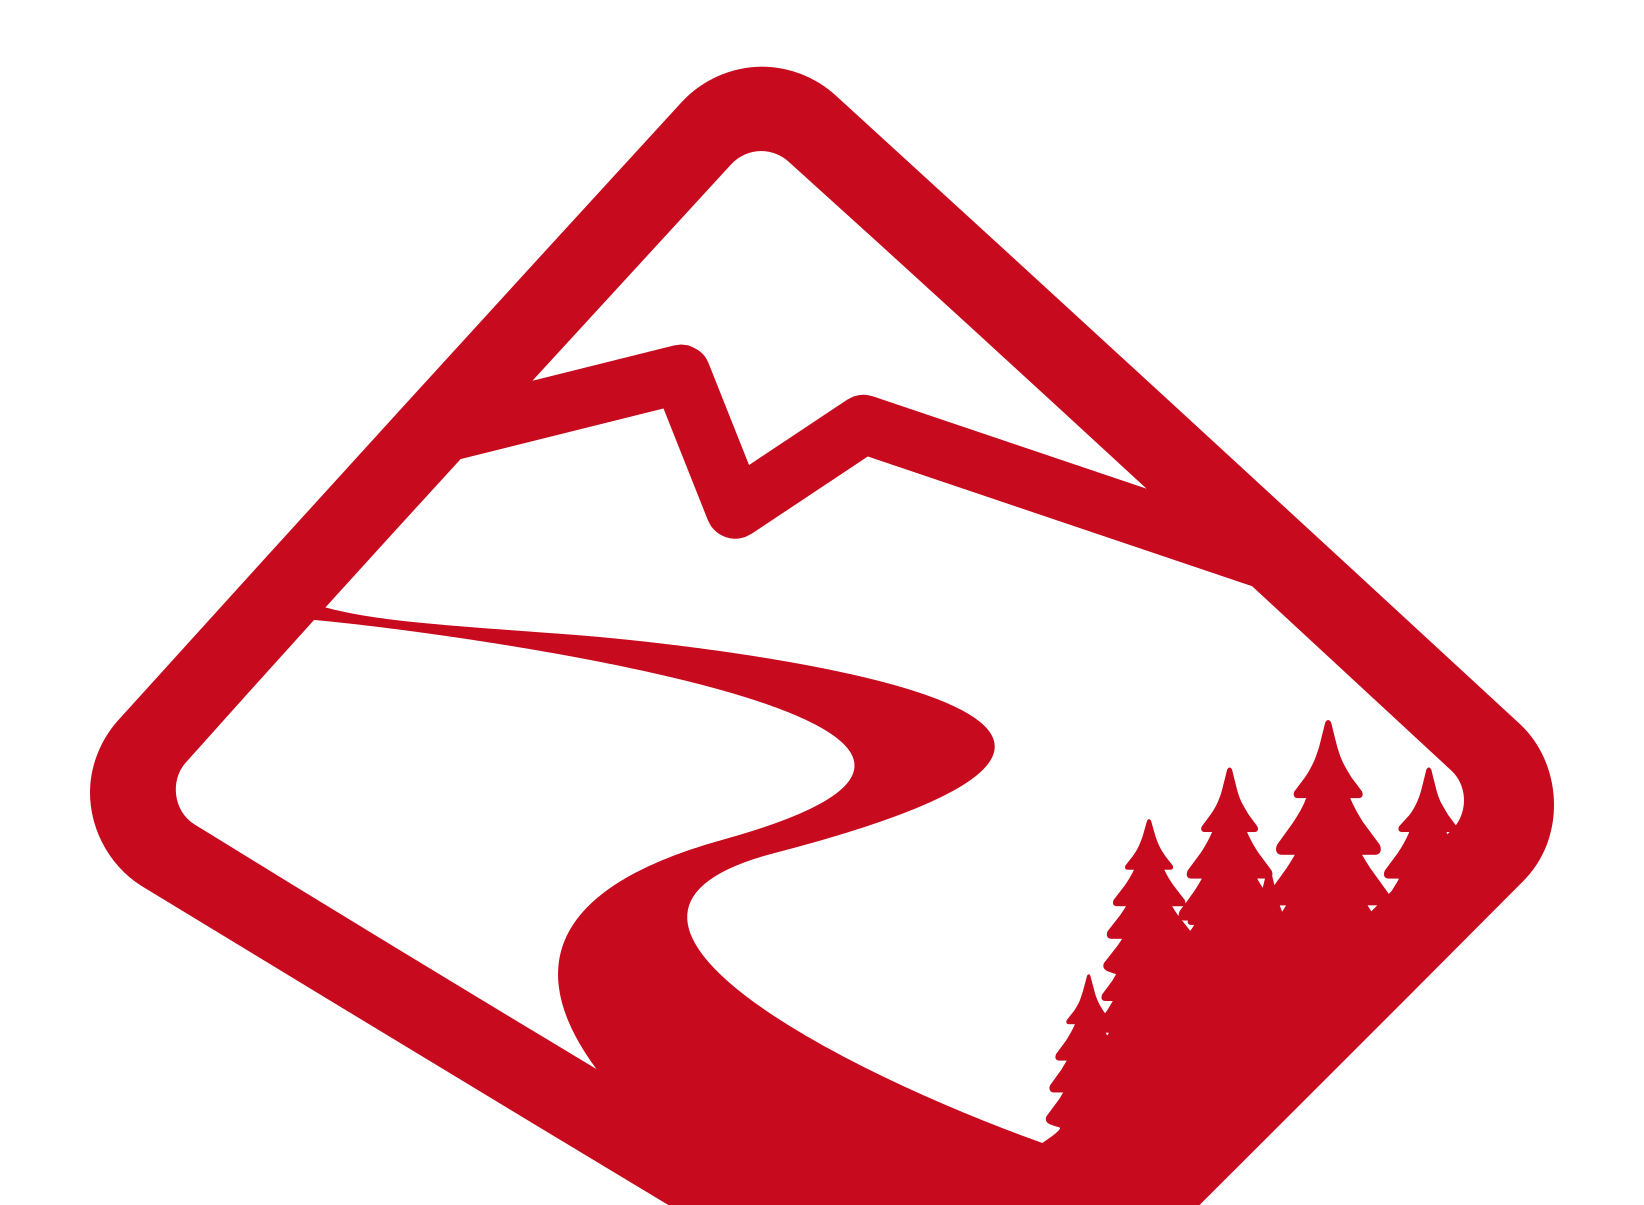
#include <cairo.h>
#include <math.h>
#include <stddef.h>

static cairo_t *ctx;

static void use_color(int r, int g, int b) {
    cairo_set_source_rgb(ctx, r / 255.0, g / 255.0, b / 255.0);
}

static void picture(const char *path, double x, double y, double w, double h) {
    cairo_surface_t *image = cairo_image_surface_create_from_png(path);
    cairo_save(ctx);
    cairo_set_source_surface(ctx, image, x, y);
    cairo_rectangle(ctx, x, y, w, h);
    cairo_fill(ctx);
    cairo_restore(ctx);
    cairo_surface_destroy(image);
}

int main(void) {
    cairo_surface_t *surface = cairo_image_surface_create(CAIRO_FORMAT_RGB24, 1644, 1205);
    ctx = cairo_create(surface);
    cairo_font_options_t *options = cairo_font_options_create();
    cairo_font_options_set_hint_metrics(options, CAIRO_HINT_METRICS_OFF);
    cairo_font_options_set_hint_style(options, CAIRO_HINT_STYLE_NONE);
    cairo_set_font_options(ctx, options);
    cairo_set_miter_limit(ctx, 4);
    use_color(255, 255, 255);
    cairo_paint(ctx);
    picture("img1.png", 90, 66, 1464, 1139);
    cairo_surface_write_to_png(surface, "result.png");
    cairo_font_options_destroy(options);
    cairo_destroy(ctx);
    cairo_surface_destroy(surface);
    return 0;
}
